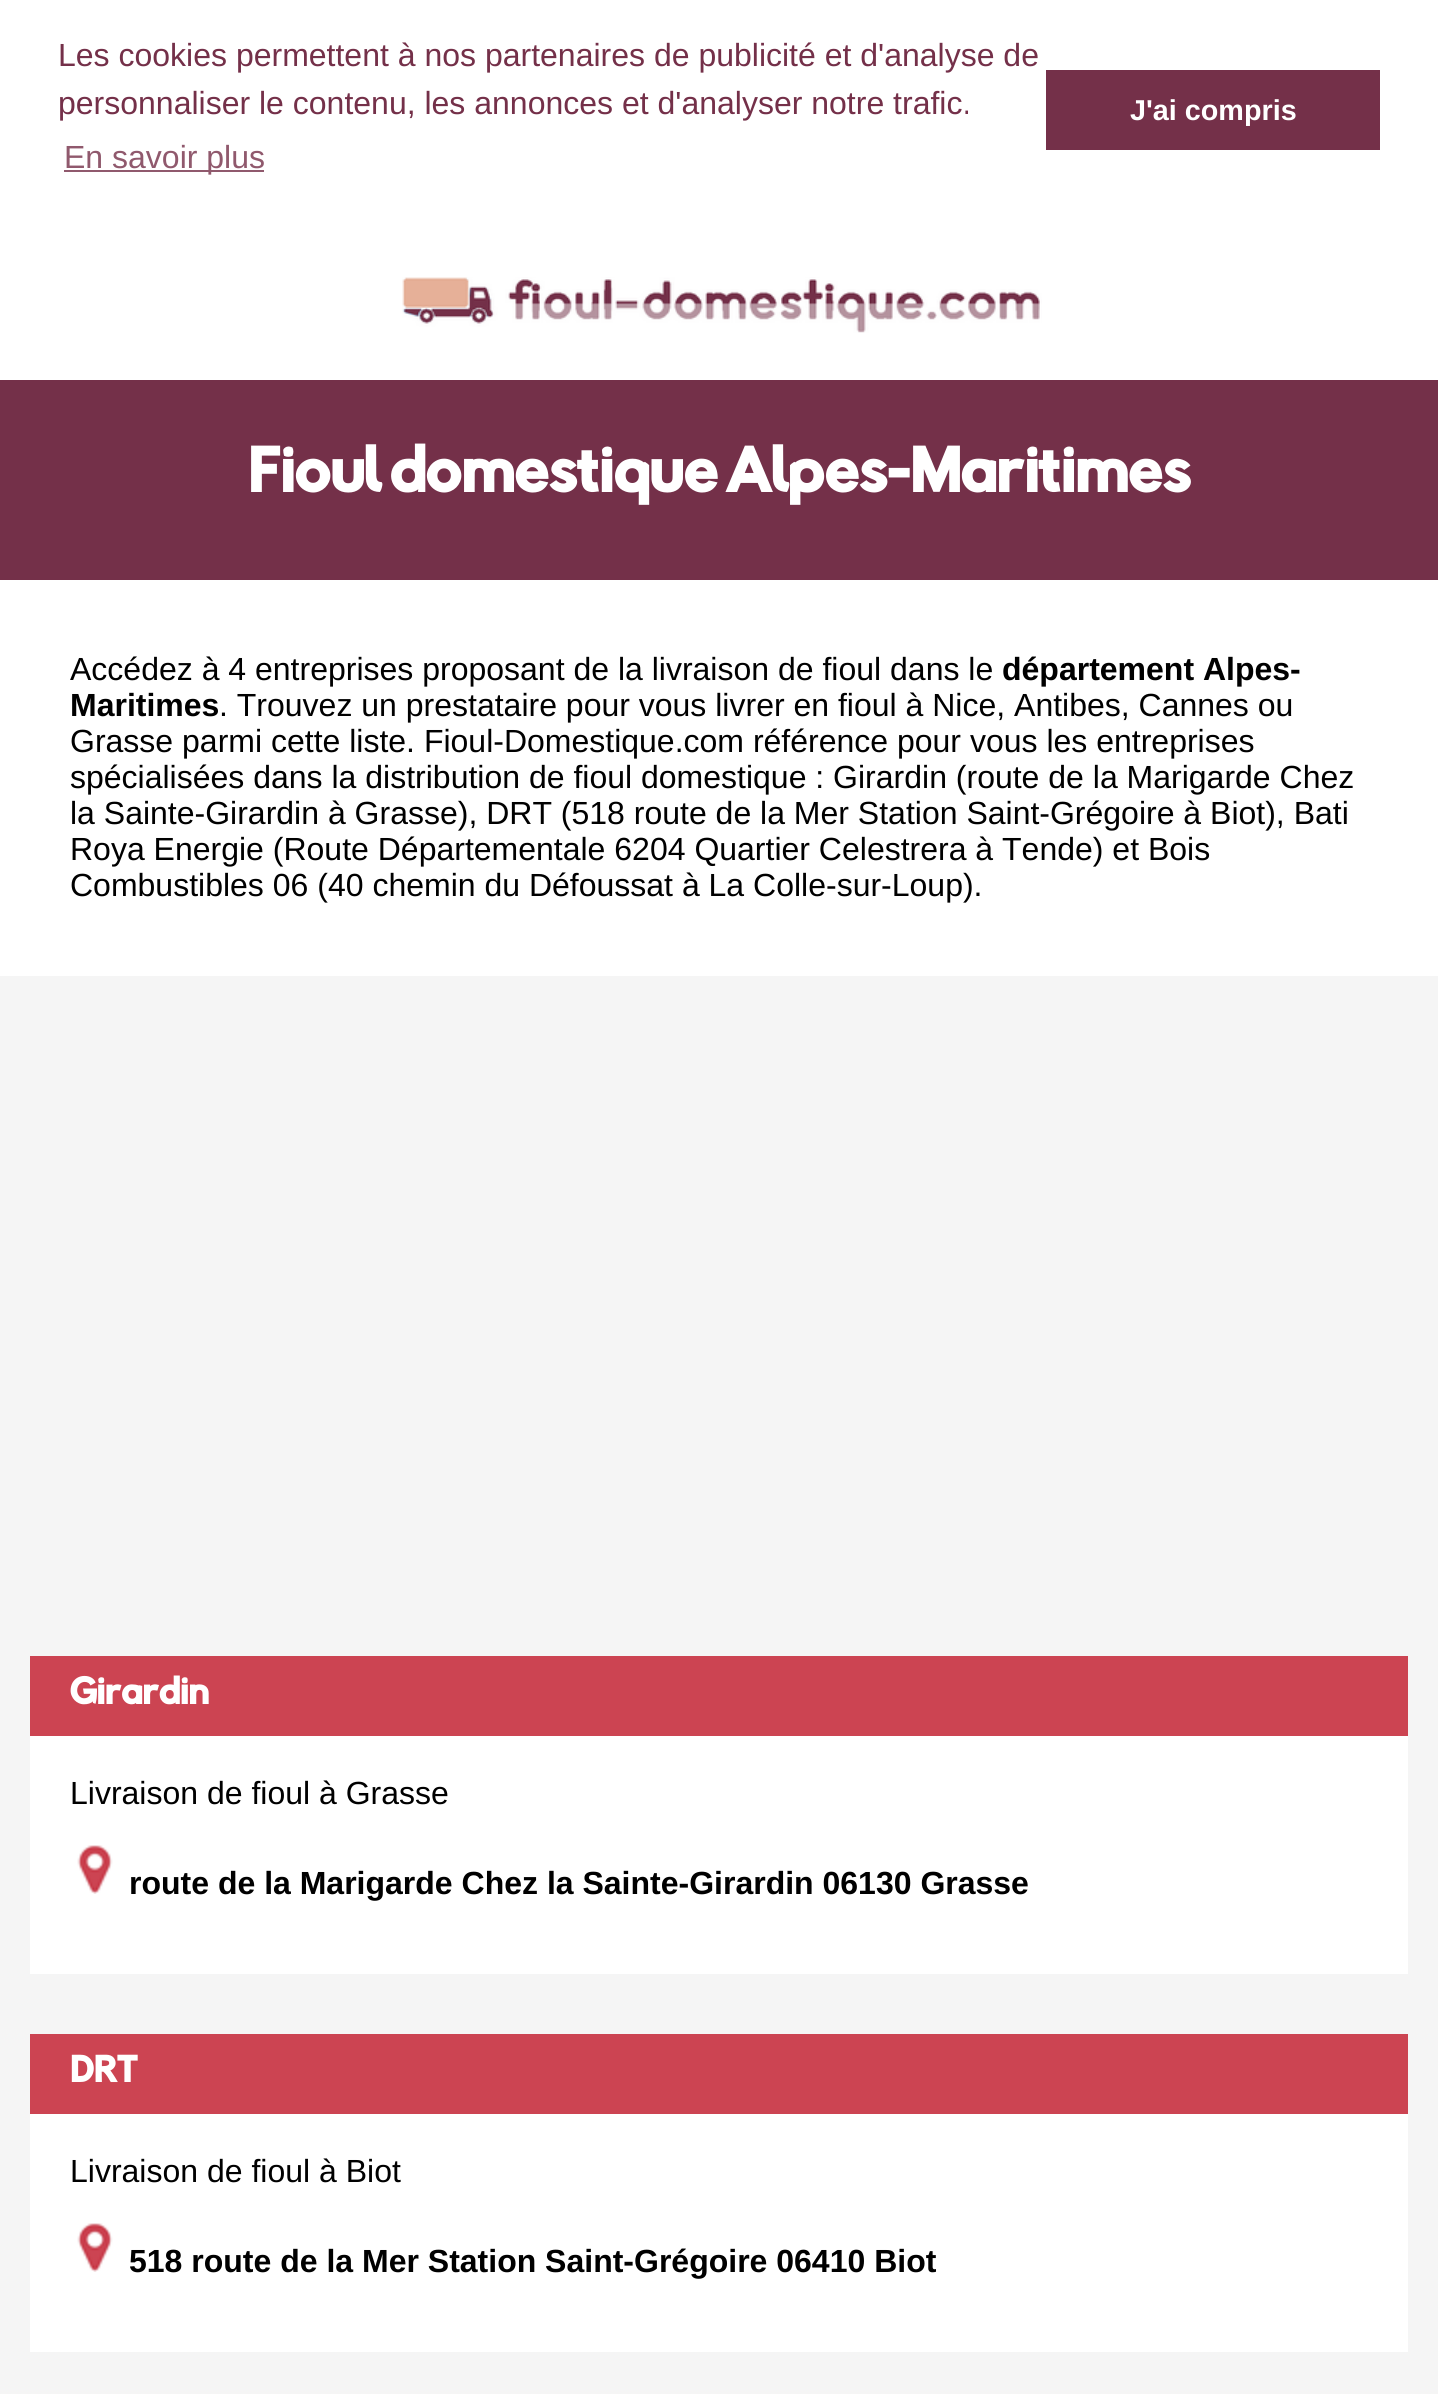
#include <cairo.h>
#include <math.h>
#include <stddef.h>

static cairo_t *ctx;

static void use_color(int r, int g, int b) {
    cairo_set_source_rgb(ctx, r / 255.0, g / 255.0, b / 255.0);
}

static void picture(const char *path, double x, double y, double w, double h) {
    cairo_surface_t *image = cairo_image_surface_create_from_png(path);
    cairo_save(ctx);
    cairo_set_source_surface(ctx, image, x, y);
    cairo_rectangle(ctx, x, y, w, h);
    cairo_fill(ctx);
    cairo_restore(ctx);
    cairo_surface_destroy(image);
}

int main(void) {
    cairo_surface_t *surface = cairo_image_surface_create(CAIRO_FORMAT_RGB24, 1438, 2394);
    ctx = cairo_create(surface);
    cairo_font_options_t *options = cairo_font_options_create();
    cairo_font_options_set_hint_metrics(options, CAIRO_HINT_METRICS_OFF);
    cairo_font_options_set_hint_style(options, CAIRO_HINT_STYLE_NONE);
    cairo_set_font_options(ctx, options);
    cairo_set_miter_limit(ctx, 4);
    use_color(245, 245, 245);
    cairo_paint(ctx);
    use_color(255, 255, 255);
    cairo_rectangle(ctx, 0, 0, 1438, 380);
    cairo_fill(ctx);
    picture("img1.png", 402, 277, 640, 56);
    cairo_select_font_face(ctx, "Liberation Sans", CAIRO_FONT_SLANT_NORMAL, CAIRO_FONT_WEIGHT_NORMAL);
    cairo_set_font_size(ctx, 32);
    use_color(116, 48, 73);
    cairo_move_to(ctx, 58, 66);
    cairo_show_text(ctx, "Les cookies permettent à nos partenaires de publicité et d'analyse de");
    cairo_move_to(ctx, 58, 114);
    cairo_show_text(ctx, "personnaliser le contenu, les annonces et d'analyser notre trafic.");
    use_color(144, 89, 109);
    cairo_rectangle(ctx, 64, 170, 200, 2);
    cairo_fill(ctx);
    cairo_move_to(ctx, 64, 168);
    cairo_show_text(ctx, "En savoir plus");
    use_color(116, 48, 73);
    cairo_rectangle(ctx, 1046, 70, 334, 80);
    cairo_fill(ctx);
    cairo_select_font_face(ctx, "Liberation Sans", CAIRO_FONT_SLANT_NORMAL, CAIRO_FONT_WEIGHT_BOLD);
    cairo_set_font_size(ctx, 28.75);
    use_color(255, 255, 255);
    cairo_move_to(ctx, 1130, 120);
    cairo_show_text(ctx, "J'ai compris");
    use_color(116, 48, 73);
    cairo_rectangle(ctx, 0, 380, 1438, 200);
    cairo_fill(ctx);
    cairo_select_font_face(ctx, "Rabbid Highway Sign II", CAIRO_FONT_SLANT_NORMAL, CAIRO_FONT_WEIGHT_BOLD);
    cairo_set_font_size(ctx, 54.4);
    use_color(255, 255, 255);
    cairo_move_to(ctx, 248, 492);
    cairo_show_text(ctx, "Fioul domestique Alpes-Maritimes");
    cairo_rectangle(ctx, 0, 580, 1438, 396);
    cairo_fill(ctx);
    cairo_select_font_face(ctx, "Liberation Sans", CAIRO_FONT_SLANT_NORMAL, CAIRO_FONT_WEIGHT_NORMAL);
    cairo_set_font_size(ctx, 32);
    use_color(0, 0, 0);
    cairo_move_to(ctx, 70, 680);
    cairo_show_text(ctx, "Accédez à 4 entreprises proposant de la livraison de fioul dans le");
    cairo_select_font_face(ctx, "Liberation Sans", CAIRO_FONT_SLANT_NORMAL, CAIRO_FONT_WEIGHT_BOLD);
    cairo_move_to(ctx, 1002, 680);
    cairo_show_text(ctx, "département Alpes-");
    cairo_move_to(ctx, 70, 716);
    cairo_show_text(ctx, "Maritimes");
    cairo_select_font_face(ctx, "Liberation Sans", CAIRO_FONT_SLANT_NORMAL, CAIRO_FONT_WEIGHT_NORMAL);
    cairo_move_to(ctx, 219, 716);
    cairo_show_text(ctx, ". Trouvez un prestataire pour vous livrer en fioul à Nice, Antibes, Cannes ou");
    cairo_move_to(ctx, 70, 752);
    cairo_show_text(ctx, "Grasse parmi cette liste. Fioul-Domestique.com référence pour vous les entreprises");
    cairo_move_to(ctx, 70, 788);
    cairo_show_text(ctx, "spécialisées dans la distribution de fioul domestique : Girardin (route de la Marigarde Chez");
    cairo_move_to(ctx, 70, 824);
    cairo_show_text(ctx, "la Sainte-Girardin à Grasse), DRT (518 route de la Mer Station Saint-Grégoire à Biot), Bati");
    cairo_move_to(ctx, 70, 860);
    cairo_show_text(ctx, "Roya Energie (Route Départementale 6204 Quartier Celestrera à Tende) et Bois");
    cairo_move_to(ctx, 70, 896);
    cairo_show_text(ctx, "Combustibles 06 (40 chemin du Défoussat à La Colle-sur-Loup).");
    use_color(204, 68, 82);
    cairo_rectangle(ctx, 30, 1656, 1378, 80);
    cairo_fill(ctx);
    cairo_select_font_face(ctx, "Rabbid Highway Sign II", CAIRO_FONT_SLANT_NORMAL, CAIRO_FONT_WEIGHT_BOLD);
    use_color(255, 255, 255);
    cairo_move_to(ctx, 70, 1704);
    cairo_show_text(ctx, "Girardin");
    cairo_rectangle(ctx, 30, 1736, 1378, 238);
    cairo_fill(ctx);
    cairo_select_font_face(ctx, "Liberation Sans", CAIRO_FONT_SLANT_NORMAL, CAIRO_FONT_WEIGHT_NORMAL);
    use_color(0, 0, 0);
    cairo_move_to(ctx, 70, 1804);
    cairo_show_text(ctx, "Livraison de fioul à Grasse");
    picture("img2.png", 77, 1845, 36, 49);
    cairo_select_font_face(ctx, "Liberation Sans", CAIRO_FONT_SLANT_NORMAL, CAIRO_FONT_WEIGHT_BOLD);
    cairo_move_to(ctx, 129, 1894);
    cairo_show_text(ctx, "route de la Marigarde Chez la Sainte-Girardin 06130 Grasse");
    use_color(204, 68, 82);
    cairo_rectangle(ctx, 30, 2034, 1378, 80);
    cairo_fill(ctx);
    cairo_select_font_face(ctx, "Rabbid Highway Sign II", CAIRO_FONT_SLANT_NORMAL, CAIRO_FONT_WEIGHT_BOLD);
    use_color(255, 255, 255);
    cairo_move_to(ctx, 70, 2082);
    cairo_show_text(ctx, "DRT");
    cairo_rectangle(ctx, 30, 2114, 1378, 238);
    cairo_fill(ctx);
    cairo_select_font_face(ctx, "Liberation Sans", CAIRO_FONT_SLANT_NORMAL, CAIRO_FONT_WEIGHT_NORMAL);
    use_color(0, 0, 0);
    cairo_move_to(ctx, 70, 2182);
    cairo_show_text(ctx, "Livraison de fioul à Biot");
    picture("img2.png", 77, 2223, 36, 49);
    cairo_select_font_face(ctx, "Liberation Sans", CAIRO_FONT_SLANT_NORMAL, CAIRO_FONT_WEIGHT_BOLD);
    cairo_move_to(ctx, 129, 2272);
    cairo_show_text(ctx, "518 route de la Mer Station Saint-Grégoire 06410 Biot");
    cairo_surface_write_to_png(surface, "result.png");
    cairo_font_options_destroy(options);
    cairo_destroy(ctx);
    cairo_surface_destroy(surface);
    return 0;
}
